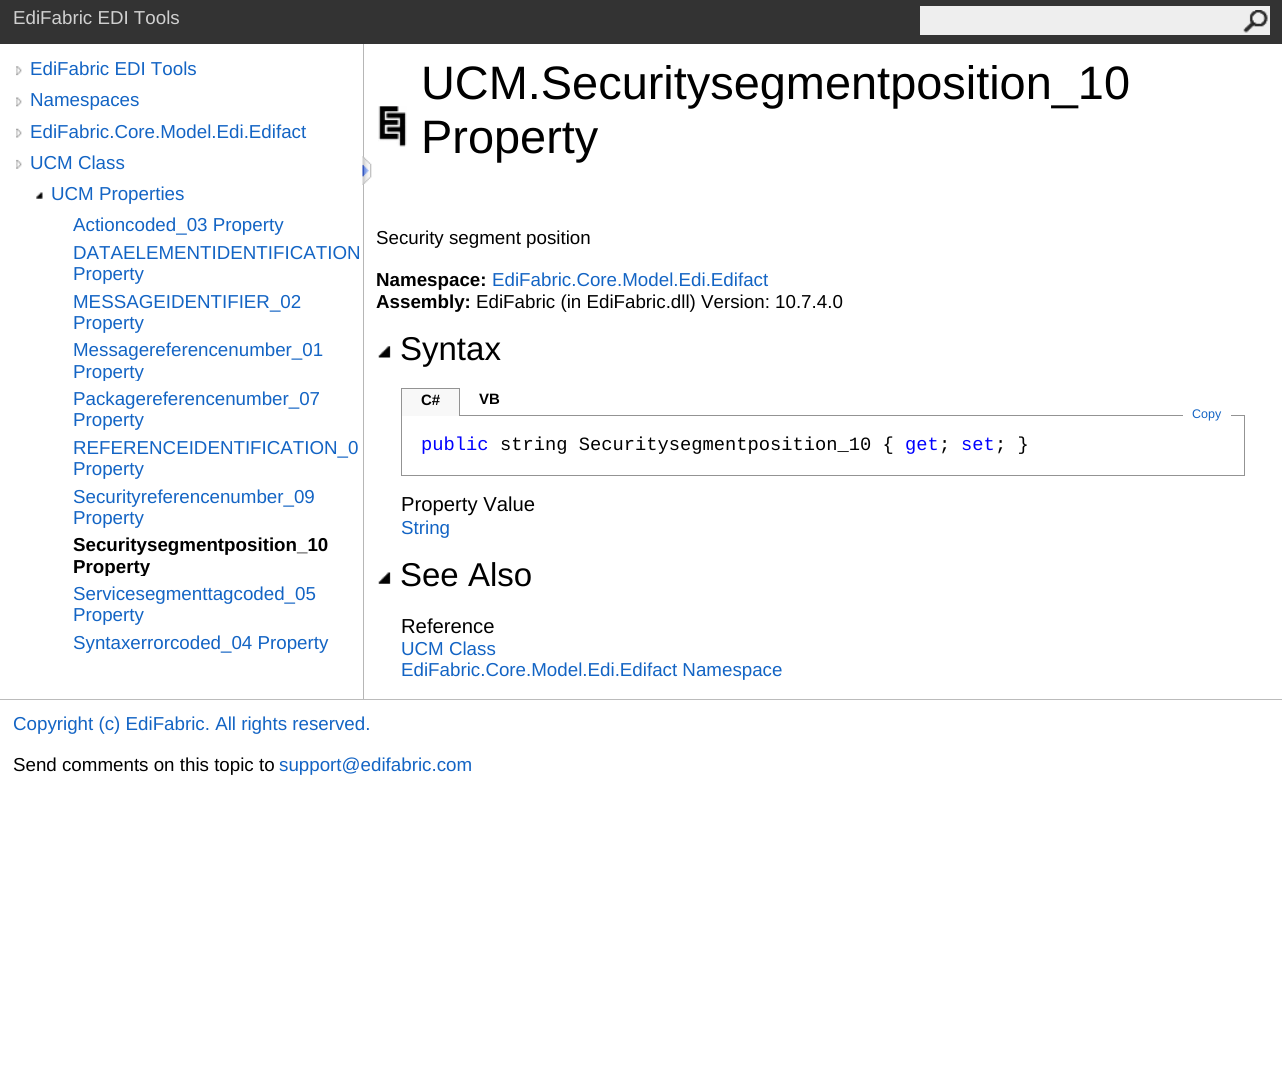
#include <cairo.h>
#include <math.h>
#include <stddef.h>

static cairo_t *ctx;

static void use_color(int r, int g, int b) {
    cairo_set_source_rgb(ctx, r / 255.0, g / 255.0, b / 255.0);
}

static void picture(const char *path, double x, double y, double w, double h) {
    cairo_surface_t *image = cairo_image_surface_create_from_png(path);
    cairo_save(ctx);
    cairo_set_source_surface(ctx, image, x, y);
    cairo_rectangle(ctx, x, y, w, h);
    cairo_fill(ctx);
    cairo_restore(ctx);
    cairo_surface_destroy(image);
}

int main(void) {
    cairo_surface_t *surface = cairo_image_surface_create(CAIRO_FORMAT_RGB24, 1282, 1065);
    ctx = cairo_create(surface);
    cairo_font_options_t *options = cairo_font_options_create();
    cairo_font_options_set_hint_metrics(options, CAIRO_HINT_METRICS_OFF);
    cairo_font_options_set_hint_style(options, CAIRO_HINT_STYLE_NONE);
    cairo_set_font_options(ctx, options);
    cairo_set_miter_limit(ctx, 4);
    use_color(255, 255, 255);
    cairo_paint(ctx);
    use_color(51, 51, 51);
    cairo_rectangle(ctx, 0, 0, 1282, 44);
    cairo_fill(ctx);
    cairo_select_font_face(ctx, "Liberation Sans", CAIRO_FONT_SLANT_NORMAL, CAIRO_FONT_WEIGHT_NORMAL);
    cairo_set_font_size(ctx, 18.75);
    use_color(208, 208, 208);
    cairo_move_to(ctx, 13, 24);
    cairo_show_text(ctx, "EdiFabric EDI Tools");
    use_color(238, 238, 238);
    cairo_rectangle(ctx, 920, 6, 350, 29);
    cairo_fill(ctx);
    picture("img1.png", 1243, 10, 25, 23);
    use_color(182, 182, 182);
    cairo_rectangle(ctx, 363, 44, 1, 655);
    cairo_fill(ctx);
    picture("img2.png", 16, 66, 6, 10);
    use_color(19, 100, 196);
    cairo_move_to(ctx, 30, 75);
    cairo_show_text(ctx, "EdiFabric EDI Tools");
    picture("img3.png", 16, 97, 6, 10);
    cairo_move_to(ctx, 30, 106);
    cairo_show_text(ctx, "Namespaces");
    picture("img4.png", 16, 128, 6, 10);
    cairo_move_to(ctx, 30, 138);
    cairo_show_text(ctx, "EdiFabric.Core.Model.Edi.Edifact");
    picture("img5.png", 16, 159, 6, 10);
    cairo_move_to(ctx, 30, 169);
    cairo_show_text(ctx, "UCM Class");
    picture("img6.png", 36, 192, 7, 7);
    cairo_move_to(ctx, 51, 200);
    cairo_show_text(ctx, "UCM Properties");
    cairo_move_to(ctx, 73, 231);
    cairo_show_text(ctx, "Actioncoded_03 Property");
    cairo_move_to(ctx, 73, 259);
    cairo_show_text(ctx, "DATAELEMENTIDENTIFICATION");
    cairo_move_to(ctx, 73, 280);
    cairo_show_text(ctx, "Property");
    cairo_move_to(ctx, 73, 308);
    cairo_show_text(ctx, "MESSAGEIDENTIFIER_02");
    cairo_move_to(ctx, 73, 329);
    cairo_show_text(ctx, "Property");
    cairo_move_to(ctx, 73, 356);
    cairo_show_text(ctx, "Messagereferencenumber_01");
    cairo_save(ctx);
    cairo_rectangle(ctx, 73, 339, 290, 42);
    cairo_clip(ctx);
    cairo_move_to(ctx, 73, 378);
    cairo_show_text(ctx, "Property");
    cairo_restore(ctx);
    cairo_move_to(ctx, 73, 405);
    cairo_show_text(ctx, "Packagereferencenumber_07");
    cairo_move_to(ctx, 73, 426);
    cairo_show_text(ctx, "Property");
    cairo_move_to(ctx, 73, 454);
    cairo_show_text(ctx, "REFERENCEIDENTIFICATION_0");
    cairo_move_to(ctx, 73, 475);
    cairo_show_text(ctx, "Property");
    cairo_move_to(ctx, 73, 503);
    cairo_show_text(ctx, "Securityreferencenumber_09");
    cairo_move_to(ctx, 73, 524);
    cairo_show_text(ctx, "Property");
    cairo_select_font_face(ctx, "Liberation Sans", CAIRO_FONT_SLANT_NORMAL, CAIRO_FONT_WEIGHT_BOLD);
    use_color(0, 0, 0);
    cairo_move_to(ctx, 73, 551);
    cairo_show_text(ctx, "Securitysegmentposition_10");
    cairo_save(ctx);
    cairo_rectangle(ctx, 73, 534, 290, 42);
    cairo_clip(ctx);
    cairo_move_to(ctx, 73, 573);
    cairo_show_text(ctx, "Property");
    cairo_restore(ctx);
    cairo_select_font_face(ctx, "Liberation Sans", CAIRO_FONT_SLANT_NORMAL, CAIRO_FONT_WEIGHT_NORMAL);
    use_color(19, 100, 196);
    cairo_move_to(ctx, 73, 600);
    cairo_show_text(ctx, "Servicesegmenttagcoded_05");
    cairo_move_to(ctx, 73, 621);
    cairo_show_text(ctx, "Property");
    cairo_move_to(ctx, 73, 649);
    cairo_show_text(ctx, "Syntaxerrorcoded_04 Property");
    picture("img7.png", 362, 156, 10, 29);
    picture("img8.png", 378, 106, 29, 41);
    cairo_set_font_size(ctx, 46.9);
    use_color(0, 0, 0);
    cairo_move_to(ctx, 421, 99);
    cairo_show_text(ctx, "UCM.Securitysegmentposition_10");
    cairo_move_to(ctx, 421, 153);
    cairo_show_text(ctx, "Property");
    cairo_set_font_size(ctx, 18.75);
    cairo_move_to(ctx, 376, 244);
    cairo_show_text(ctx, "Security segment position");
    cairo_select_font_face(ctx, "Liberation Sans", CAIRO_FONT_SLANT_NORMAL, CAIRO_FONT_WEIGHT_BOLD);
    cairo_move_to(ctx, 376, 286);
    cairo_show_text(ctx, "Namespace:");
    cairo_select_font_face(ctx, "Liberation Sans", CAIRO_FONT_SLANT_NORMAL, CAIRO_FONT_WEIGHT_NORMAL);
    use_color(19, 100, 196);
    cairo_move_to(ctx, 492, 286);
    cairo_show_text(ctx, "EdiFabric.Core.Model.Edi.Edifact");
    cairo_select_font_face(ctx, "Liberation Sans", CAIRO_FONT_SLANT_NORMAL, CAIRO_FONT_WEIGHT_BOLD);
    use_color(0, 0, 0);
    cairo_move_to(ctx, 376, 308);
    cairo_show_text(ctx, "Assembly:");
    cairo_select_font_face(ctx, "Liberation Sans", CAIRO_FONT_SLANT_NORMAL, CAIRO_FONT_WEIGHT_NORMAL);
    cairo_move_to(ctx, 476, 308);
    cairo_show_text(ctx, "EdiFabric (in EdiFabric.dll) Version: 10.7.4.0");
    picture("img9.png", 378, 346, 13, 12);
    cairo_set_font_size(ctx, 33);
    cairo_move_to(ctx, 400, 360);
    cairo_show_text(ctx, "Syntax");
    cairo_rectangle(ctx, 401.5, 415.5, 843, 60);
    use_color(147, 147, 147);
    cairo_set_line_width(ctx, 1);
    cairo_stroke(ctx);
    use_color(248, 248, 248);
    cairo_rectangle(ctx, 402, 389, 57, 27);
    cairo_fill(ctx);
    use_color(147, 147, 147);
    cairo_rectangle(ctx, 401, 388, 59, 1);
    cairo_fill(ctx);
    cairo_rectangle(ctx, 459, 388, 1, 28);
    cairo_fill(ctx);
    cairo_rectangle(ctx, 401, 388, 1, 28);
    cairo_fill(ctx);
    cairo_select_font_face(ctx, "Liberation Sans", CAIRO_FONT_SLANT_NORMAL, CAIRO_FONT_WEIGHT_BOLD);
    cairo_set_font_size(ctx, 15);
    use_color(0, 0, 0);
    cairo_move_to(ctx, 421, 405);
    cairo_show_text(ctx, "C#");
    cairo_move_to(ctx, 479, 404);
    cairo_show_text(ctx, "VB");
    use_color(255, 255, 255);
    cairo_rectangle(ctx, 1183, 415, 48, 1);
    cairo_fill(ctx);
    cairo_select_font_face(ctx, "Liberation Sans", CAIRO_FONT_SLANT_NORMAL, CAIRO_FONT_WEIGHT_NORMAL);
    cairo_set_font_size(ctx, 12.5);
    use_color(19, 100, 196);
    cairo_move_to(ctx, 1192, 418);
    cairo_show_text(ctx, "Copy");
    cairo_select_font_face(ctx, "Liberation Mono", CAIRO_FONT_SLANT_NORMAL, CAIRO_FONT_WEIGHT_NORMAL);
    cairo_set_font_size(ctx, 18.75);
    use_color(0, 0, 255);
    cairo_move_to(ctx, 421, 450);
    cairo_show_text(ctx, "public");
    use_color(0, 0, 0);
    cairo_move_to(ctx, 500, 450);
    cairo_show_text(ctx, "string Securitysegmentposition_10 {");
    use_color(0, 0, 255);
    cairo_move_to(ctx, 905, 450);
    cairo_show_text(ctx, "get");
    use_color(0, 0, 0);
    cairo_move_to(ctx, 939, 450);
    cairo_show_text(ctx, ";");
    use_color(0, 0, 255);
    cairo_move_to(ctx, 961, 450);
    cairo_show_text(ctx, "set");
    use_color(0, 0, 0);
    cairo_move_to(ctx, 995, 450);
    cairo_show_text(ctx, "; }");
    cairo_select_font_face(ctx, "Liberation Sans", CAIRO_FONT_SLANT_NORMAL, CAIRO_FONT_WEIGHT_NORMAL);
    cairo_set_font_size(ctx, 20.25);
    cairo_move_to(ctx, 401, 511);
    cairo_show_text(ctx, "Property Value");
    cairo_set_font_size(ctx, 18.75);
    use_color(19, 100, 196);
    cairo_move_to(ctx, 401, 534);
    cairo_show_text(ctx, "String");
    picture("img10.png", 378, 572, 13, 12);
    cairo_set_font_size(ctx, 33);
    use_color(0, 0, 0);
    cairo_move_to(ctx, 400, 586);
    cairo_show_text(ctx, "See Also");
    cairo_set_font_size(ctx, 20.25);
    cairo_move_to(ctx, 401, 633);
    cairo_show_text(ctx, "Reference");
    cairo_set_font_size(ctx, 18.75);
    use_color(19, 100, 196);
    cairo_move_to(ctx, 401, 655);
    cairo_show_text(ctx, "UCM Class");
    cairo_move_to(ctx, 401, 676);
    cairo_show_text(ctx, "EdiFabric.Core.Model.Edi.Edifact Namespace");
    use_color(187, 187, 187);
    cairo_rectangle(ctx, 0, 699, 1282, 1);
    cairo_fill(ctx);
    use_color(19, 100, 196);
    cairo_move_to(ctx, 13, 730);
    cairo_show_text(ctx, "Copyright (c) EdiFabric. All rights reserved.");
    use_color(0, 0, 0);
    cairo_move_to(ctx, 13, 771);
    cairo_show_text(ctx, "Send comments on this topic to");
    use_color(19, 100, 196);
    cairo_move_to(ctx, 279, 771);
    cairo_show_text(ctx, "support@edifabric.com");
    cairo_surface_write_to_png(surface, "result.png");
    cairo_font_options_destroy(options);
    cairo_destroy(ctx);
    cairo_surface_destroy(surface);
    return 0;
}
